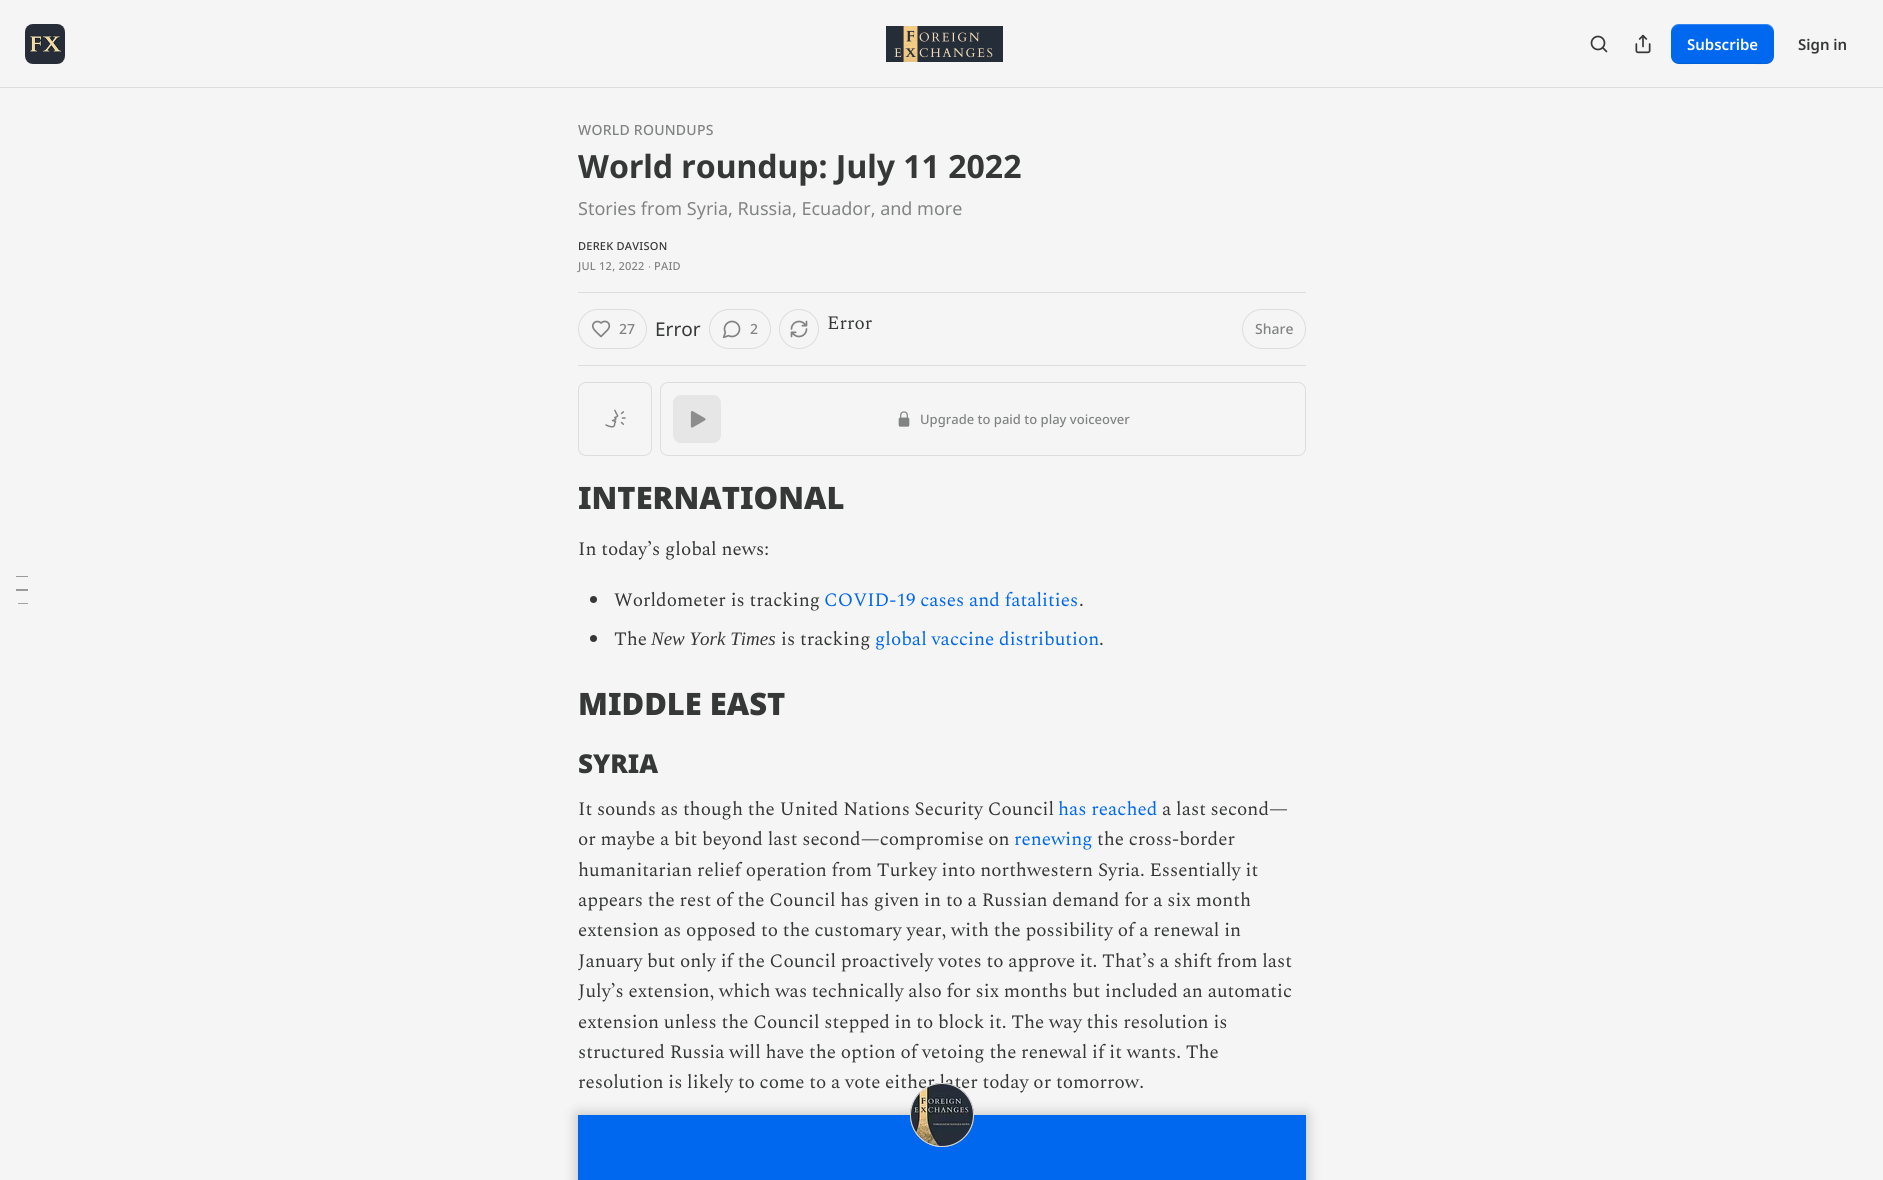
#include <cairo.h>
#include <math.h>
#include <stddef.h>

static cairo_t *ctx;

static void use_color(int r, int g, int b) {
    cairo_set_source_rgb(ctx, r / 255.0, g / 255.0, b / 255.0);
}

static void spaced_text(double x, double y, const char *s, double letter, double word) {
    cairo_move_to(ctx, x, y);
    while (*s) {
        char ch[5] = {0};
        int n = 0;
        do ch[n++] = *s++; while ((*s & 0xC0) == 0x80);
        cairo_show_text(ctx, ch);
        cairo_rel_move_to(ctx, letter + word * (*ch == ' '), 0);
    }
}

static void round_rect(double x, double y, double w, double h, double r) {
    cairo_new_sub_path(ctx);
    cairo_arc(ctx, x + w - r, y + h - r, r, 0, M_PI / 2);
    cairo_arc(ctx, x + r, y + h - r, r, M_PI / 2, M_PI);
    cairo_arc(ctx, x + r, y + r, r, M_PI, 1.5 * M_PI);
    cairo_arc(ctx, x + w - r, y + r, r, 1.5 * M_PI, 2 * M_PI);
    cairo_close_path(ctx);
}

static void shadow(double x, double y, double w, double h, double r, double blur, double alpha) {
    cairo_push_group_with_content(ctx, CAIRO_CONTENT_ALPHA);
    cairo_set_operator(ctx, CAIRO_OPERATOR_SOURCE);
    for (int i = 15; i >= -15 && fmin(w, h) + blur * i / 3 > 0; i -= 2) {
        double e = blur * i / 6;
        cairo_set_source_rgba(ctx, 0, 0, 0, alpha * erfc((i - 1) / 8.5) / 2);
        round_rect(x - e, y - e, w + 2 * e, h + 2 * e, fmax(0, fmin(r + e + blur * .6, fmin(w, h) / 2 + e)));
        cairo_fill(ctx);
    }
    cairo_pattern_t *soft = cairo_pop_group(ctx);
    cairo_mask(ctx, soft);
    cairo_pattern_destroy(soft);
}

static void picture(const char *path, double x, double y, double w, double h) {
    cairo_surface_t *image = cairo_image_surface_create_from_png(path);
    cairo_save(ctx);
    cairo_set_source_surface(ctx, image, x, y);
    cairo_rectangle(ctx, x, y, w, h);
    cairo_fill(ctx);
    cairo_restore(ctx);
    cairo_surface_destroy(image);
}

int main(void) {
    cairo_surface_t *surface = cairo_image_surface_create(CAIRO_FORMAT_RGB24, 1883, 1180);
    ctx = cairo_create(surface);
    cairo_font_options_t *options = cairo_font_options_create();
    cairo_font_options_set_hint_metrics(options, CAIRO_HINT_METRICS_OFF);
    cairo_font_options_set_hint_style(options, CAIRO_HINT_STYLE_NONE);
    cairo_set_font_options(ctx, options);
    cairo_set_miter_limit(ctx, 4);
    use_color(245, 245, 245);
    cairo_paint(ctx);
    use_color(221, 221, 221);
    cairo_rectangle(ctx, 0, 87, 1883, 1);
    cairo_fill(ctx);
    use_color(255, 255, 255);
    round_rect(25, 24, 40, 40, 8);
    cairo_fill(ctx);
    picture("img1.png", 25, 24, 40, 40);
    picture("img2.png", 886, 26, 117, 36);
    cairo_arc(ctx, 1598, 43, 6.5, 0, 2 * M_PI);
    use_color(54, 55, 55);
    cairo_set_line_width(ctx, 1.7);
    cairo_stroke(ctx);
    cairo_new_path(ctx);
    cairo_move_to(ctx, 1606.5, 51.5);
    cairo_line_to(ctx, 1603, 48);
    cairo_set_line_cap(ctx, CAIRO_LINE_CAP_ROUND);
    cairo_set_line_join(ctx, CAIRO_LINE_JOIN_ROUND);
    cairo_stroke(ctx);
    picture("img3.png", 1635, 34, 16, 20);
    use_color(0, 104, 239);
    round_rect(1671, 24, 103, 40, 8);
    cairo_fill(ctx);
    cairo_set_source_rgba(ctx, 0, 0, 0, 0.1);
    cairo_new_path(ctx);
    cairo_move_to(ctx, 1671, 55);
    cairo_curve_to(ctx, 1671, 67, 1685, 64, 1694, 64);
    cairo_line_to(ctx, 1752, 64);
    cairo_curve_to(ctx, 1760, 64, 1774, 67, 1774, 55);
    cairo_curve_to(ctx, 1774, 59, 1770, 63, 1766, 63);
    cairo_line_to(ctx, 1679, 63);
    cairo_curve_to(ctx, 1675, 63, 1671, 59, 1671, 55);
    cairo_close_path(ctx);
    cairo_fill(ctx);
    cairo_set_source_rgba(ctx, 1, 1, 1, 0.2);
    cairo_new_path(ctx);
    cairo_move_to(ctx, 1679, 25);
    cairo_line_to(ctx, 1766, 25);
    cairo_curve_to(ctx, 1770, 25, 1774, 29, 1774, 33);
    cairo_curve_to(ctx, 1774, 21, 1760, 24, 1752, 24);
    cairo_line_to(ctx, 1694, 24);
    cairo_curve_to(ctx, 1685, 24, 1671, 21, 1671, 33);
    cairo_curve_to(ctx, 1671, 29, 1675, 25, 1679, 25);
    cairo_close_path(ctx);
    cairo_fill(ctx);
    cairo_select_font_face(ctx, "Noto Sans SemiBold", CAIRO_FONT_SLANT_NORMAL, CAIRO_FONT_WEIGHT_NORMAL);
    cairo_set_font_size(ctx, 15);
    use_color(255, 255, 255);
    cairo_move_to(ctx, 1687, 50);
    cairo_show_text(ctx, "Subscribe");
    use_color(54, 55, 55);
    cairo_move_to(ctx, 1798, 50);
    cairo_show_text(ctx, "Sign in");
    cairo_select_font_face(ctx, "Noto Sans Medium", CAIRO_FONT_SLANT_NORMAL, CAIRO_FONT_WEIGHT_NORMAL);
    cairo_set_font_size(ctx, 14);
    use_color(130, 131, 131);
    spaced_text(578, 135, "WORLD ROUNDUPS", 0.25, 0);
    cairo_select_font_face(ctx, "Noto Sans", CAIRO_FONT_SLANT_NORMAL, CAIRO_FONT_WEIGHT_BOLD);
    cairo_set_font_size(ctx, 32);
    use_color(54, 55, 55);
    cairo_move_to(ctx, 578, 178);
    cairo_show_text(ctx, "World roundup: July 11 2022");
    cairo_select_font_face(ctx, "Noto Sans", CAIRO_FONT_SLANT_NORMAL, CAIRO_FONT_WEIGHT_NORMAL);
    cairo_set_font_size(ctx, 18);
    use_color(130, 131, 131);
    cairo_move_to(ctx, 578, 215);
    cairo_show_text(ctx, "Stories from Syria, Russia, Ecuador, and more");
    cairo_select_font_face(ctx, "Noto Sans Medium", CAIRO_FONT_SLANT_NORMAL, CAIRO_FONT_WEIGHT_NORMAL);
    cairo_set_font_size(ctx, 11);
    use_color(54, 55, 55);
    spaced_text(578, 250, "DEREK DAVISON", 0.25, 0);
    use_color(130, 131, 131);
    spaced_text(578, 270, "JUL 12, 2022", 0.25, 0);
    cairo_select_font_face(ctx, "Liberation Sans", CAIRO_FONT_SLANT_NORMAL, CAIRO_FONT_WEIGHT_NORMAL);
    spaced_text(648, 270, "∙", 0.25, 0);
    cairo_select_font_face(ctx, "Noto Sans Medium", CAIRO_FONT_SLANT_NORMAL, CAIRO_FONT_WEIGHT_NORMAL);
    spaced_text(654, 270, "PAID", 0.25, 0);
    use_color(221, 221, 221);
    cairo_rectangle(ctx, 578, 292, 728, 1);
    cairo_fill(ctx);
    cairo_rectangle(ctx, 578, 365, 728, 1);
    cairo_fill(ctx);
    round_rect(578.5, 309.5, 68, 39, 19.5);
    cairo_set_line_width(ctx, 1);
    cairo_set_line_cap(ctx, CAIRO_LINE_CAP_BUTT);
    cairo_set_line_join(ctx, CAIRO_LINE_JOIN_MITER);
    cairo_stroke(ctx);
    cairo_new_path(ctx);
    cairo_move_to(ctx, 607, 330.5);
    cairo_curve_to(ctx, 613, 324.5, 606, 318.5, 601, 323);
    cairo_curve_to(ctx, 597.5, 319.5, 591.5, 322.5, 593, 327.5);
    cairo_curve_to(ctx, 594, 330.5, 599, 334.5, 601, 336.5);
    cairo_close_path(ctx);
    use_color(130, 131, 131);
    cairo_set_line_width(ctx, 1.7);
    cairo_set_line_cap(ctx, CAIRO_LINE_CAP_ROUND);
    cairo_set_line_join(ctx, CAIRO_LINE_JOIN_ROUND);
    cairo_stroke(ctx);
    cairo_set_font_size(ctx, 14);
    cairo_move_to(ctx, 619, 334);
    cairo_show_text(ctx, "27");
    cairo_select_font_face(ctx, "Noto Sans", CAIRO_FONT_SLANT_NORMAL, CAIRO_FONT_WEIGHT_NORMAL);
    cairo_set_font_size(ctx, 19);
    use_color(54, 55, 55);
    cairo_move_to(ctx, 655, 336);
    cairo_show_text(ctx, "Error");
    round_rect(709.5, 309.5, 61, 39, 19.5);
    use_color(221, 221, 221);
    cairo_set_line_width(ctx, 1);
    cairo_set_line_cap(ctx, CAIRO_LINE_CAP_BUTT);
    cairo_set_line_join(ctx, CAIRO_LINE_JOIN_MITER);
    cairo_stroke(ctx);
    picture("img4.png", 722, 320, 19, 19);
    cairo_select_font_face(ctx, "Noto Sans Medium", CAIRO_FONT_SLANT_NORMAL, CAIRO_FONT_WEIGHT_NORMAL);
    cairo_set_font_size(ctx, 14);
    use_color(130, 131, 131);
    cairo_move_to(ctx, 750, 334);
    cairo_show_text(ctx, "2");
    cairo_new_path(ctx);
    cairo_arc(ctx, 799, 329, 19.5, 0, 2 * M_PI);
    use_color(221, 221, 221);
    cairo_stroke(ctx);
    picture("img5.png", 790, 320, 18, 18);
    cairo_select_font_face(ctx, "Spectral", CAIRO_FONT_SLANT_NORMAL, CAIRO_FONT_WEIGHT_NORMAL);
    cairo_set_font_size(ctx, 19);
    use_color(54, 55, 55);
    cairo_move_to(ctx, 827, 329);
    cairo_show_text(ctx, "Error");
    round_rect(1242.5, 309.5, 63, 39, 19.5);
    use_color(221, 221, 221);
    cairo_stroke(ctx);
    cairo_select_font_face(ctx, "Noto Sans Medium", CAIRO_FONT_SLANT_NORMAL, CAIRO_FONT_WEIGHT_NORMAL);
    cairo_set_font_size(ctx, 14);
    use_color(130, 131, 131);
    cairo_move_to(ctx, 1255, 334);
    cairo_show_text(ctx, "Share");
    round_rect(578.5, 382.5, 73, 73, 7.5);
    use_color(221, 221, 221);
    cairo_stroke(ctx);
    picture("img6.png", 605, 409, 21, 19);
    round_rect(660.5, 382.5, 645, 73, 7.5);
    cairo_stroke(ctx);
    use_color(230, 230, 230);
    round_rect(673, 395, 48, 48, 8);
    cairo_fill(ctx);
    picture("img7.png", 690, 411, 16, 17);
    picture("img8.png", 898, 411, 12, 16);
    cairo_set_font_size(ctx, 13);
    use_color(130, 131, 131);
    cairo_move_to(ctx, 920, 424);
    cairo_show_text(ctx, "Upgrade to paid to play voiceover");
    use_color(153, 154, 154);
    cairo_rectangle(ctx, 16, 576, 12, 1);
    cairo_fill(ctx);
    cairo_rectangle(ctx, 16, 589, 12, 2);
    cairo_fill(ctx);
    use_color(162, 162, 162);
    cairo_rectangle(ctx, 18, 603, 10, 1);
    cairo_fill(ctx);
    cairo_select_font_face(ctx, "Noto Sans Black", CAIRO_FONT_SLANT_NORMAL, CAIRO_FONT_WEIGHT_NORMAL);
    cairo_set_font_size(ctx, 30.9);
    use_color(54, 55, 55);
    cairo_move_to(ctx, 578, 509);
    cairo_show_text(ctx, "INTERNATIONAL");
    cairo_select_font_face(ctx, "Spectral", CAIRO_FONT_SLANT_NORMAL, CAIRO_FONT_WEIGHT_NORMAL);
    cairo_set_font_size(ctx, 19);
    cairo_move_to(ctx, 578, 555);
    cairo_show_text(ctx, "In today’s global news:");
    cairo_new_path(ctx);
    cairo_arc(ctx, 593.5, 599.5, 3.5, 0, 2 * M_PI);
    cairo_fill(ctx);
    cairo_move_to(ctx, 614, 606);
    cairo_show_text(ctx, "Worldometer is tracking");
    use_color(0, 104, 239);
    cairo_move_to(ctx, 824, 606);
    cairo_show_text(ctx, "COVID-19 cases and fatalities");
    use_color(54, 55, 55);
    cairo_move_to(ctx, 1079, 606);
    cairo_show_text(ctx, ".");
    cairo_new_path(ctx);
    cairo_arc(ctx, 593.5, 638.5, 3.5, 0, 2 * M_PI);
    cairo_fill(ctx);
    cairo_move_to(ctx, 614, 645);
    cairo_show_text(ctx, "The");
    cairo_select_font_face(ctx, "Liberation Serif", CAIRO_FONT_SLANT_ITALIC, CAIRO_FONT_WEIGHT_NORMAL);
    cairo_move_to(ctx, 651, 645);
    cairo_show_text(ctx, "New York Times");
    cairo_select_font_face(ctx, "Spectral", CAIRO_FONT_SLANT_NORMAL, CAIRO_FONT_WEIGHT_NORMAL);
    cairo_move_to(ctx, 781, 645);
    cairo_show_text(ctx, "is tracking");
    use_color(0, 104, 239);
    cairo_move_to(ctx, 875, 645);
    cairo_show_text(ctx, "global vaccine distribution");
    use_color(54, 55, 55);
    cairo_move_to(ctx, 1099, 645);
    cairo_show_text(ctx, ".");
    cairo_select_font_face(ctx, "Noto Sans Black", CAIRO_FONT_SLANT_NORMAL, CAIRO_FONT_WEIGHT_NORMAL);
    cairo_set_font_size(ctx, 30.9);
    cairo_move_to(ctx, 578, 715);
    cairo_show_text(ctx, "MIDDLE EAST");
    cairo_set_font_size(ctx, 26);
    cairo_move_to(ctx, 578, 773);
    cairo_show_text(ctx, "SYRIA");
    cairo_select_font_face(ctx, "Spectral", CAIRO_FONT_SLANT_NORMAL, CAIRO_FONT_WEIGHT_NORMAL);
    cairo_set_font_size(ctx, 19);
    cairo_move_to(ctx, 578, 815);
    cairo_show_text(ctx, "It sounds as though the United Nations Security Council");
    use_color(0, 104, 239);
    cairo_move_to(ctx, 1058, 815);
    cairo_show_text(ctx, "has reached");
    use_color(54, 55, 55);
    cairo_move_to(ctx, 1162, 815);
    cairo_show_text(ctx, "a last second—");
    cairo_move_to(ctx, 578, 845);
    cairo_show_text(ctx, "or maybe a bit beyond last second—compromise on");
    use_color(0, 104, 239);
    cairo_move_to(ctx, 1014, 845);
    cairo_show_text(ctx, "renewing");
    use_color(54, 55, 55);
    cairo_move_to(ctx, 1097, 845);
    cairo_show_text(ctx, "the cross-border");
    cairo_move_to(ctx, 578, 876);
    cairo_show_text(ctx, "humanitarian relief operation from Turkey into northwestern Syria. Essentially it");
    cairo_move_to(ctx, 578, 906);
    cairo_show_text(ctx, "appears the rest of the Council has given in to a Russian demand for a six month");
    cairo_move_to(ctx, 578, 936);
    cairo_show_text(ctx, "extension as opposed to the customary year, with the possibility of a renewal in");
    cairo_move_to(ctx, 578, 967);
    cairo_show_text(ctx, "January but only if the Council proactively votes to approve it. That’s a shift from last");
    cairo_move_to(ctx, 578, 997);
    cairo_show_text(ctx, "July’s extension, which was technically also for six months but included an automatic");
    cairo_move_to(ctx, 578, 1028);
    cairo_show_text(ctx, "extension unless the Council stepped in to block it. The way this resolution is");
    cairo_move_to(ctx, 578, 1058);
    cairo_show_text(ctx, "structured Russia will have the option of vetoing the renewal if it wants. The");
    cairo_move_to(ctx, 578, 1088);
    cairo_show_text(ctx, "resolution is likely to come to a vote either later today or tomorrow.");
    use_color(0, 104, 239);
    cairo_rectangle(ctx, 578, 1115, 728, 65);
    cairo_fill(ctx);
    cairo_save(ctx);
    cairo_set_fill_rule(ctx, CAIRO_FILL_RULE_EVEN_ODD);
    cairo_new_path(ctx);
    cairo_move_to(ctx, 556, 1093);
    cairo_line_to(ctx, 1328, 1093);
    cairo_line_to(ctx, 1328, 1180);
    cairo_line_to(ctx, 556, 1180);
    cairo_close_path(ctx);
    cairo_move_to(ctx, 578, 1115);
    cairo_line_to(ctx, 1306, 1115);
    cairo_line_to(ctx, 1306, 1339);
    cairo_line_to(ctx, 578, 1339);
    cairo_close_path(ctx);
    cairo_clip(ctx);
    use_color(0, 0, 0);
    shadow(578, 1115, 728, 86, 0, 7, 0.25);
    cairo_restore(ctx);
    cairo_arc(ctx, 942, 1115, 31.5, 0, 2 * M_PI);
    use_color(221, 221, 221);
    cairo_stroke(ctx);
    picture("img9.png", 910, 1083, 64, 64);
    cairo_arc(ctx, 942, 1115, 31.5, 0, 2 * M_PI);
    cairo_stroke(ctx);
    cairo_surface_write_to_png(surface, "result.png");
    cairo_font_options_destroy(options);
    cairo_destroy(ctx);
    cairo_surface_destroy(surface);
    return 0;
}
